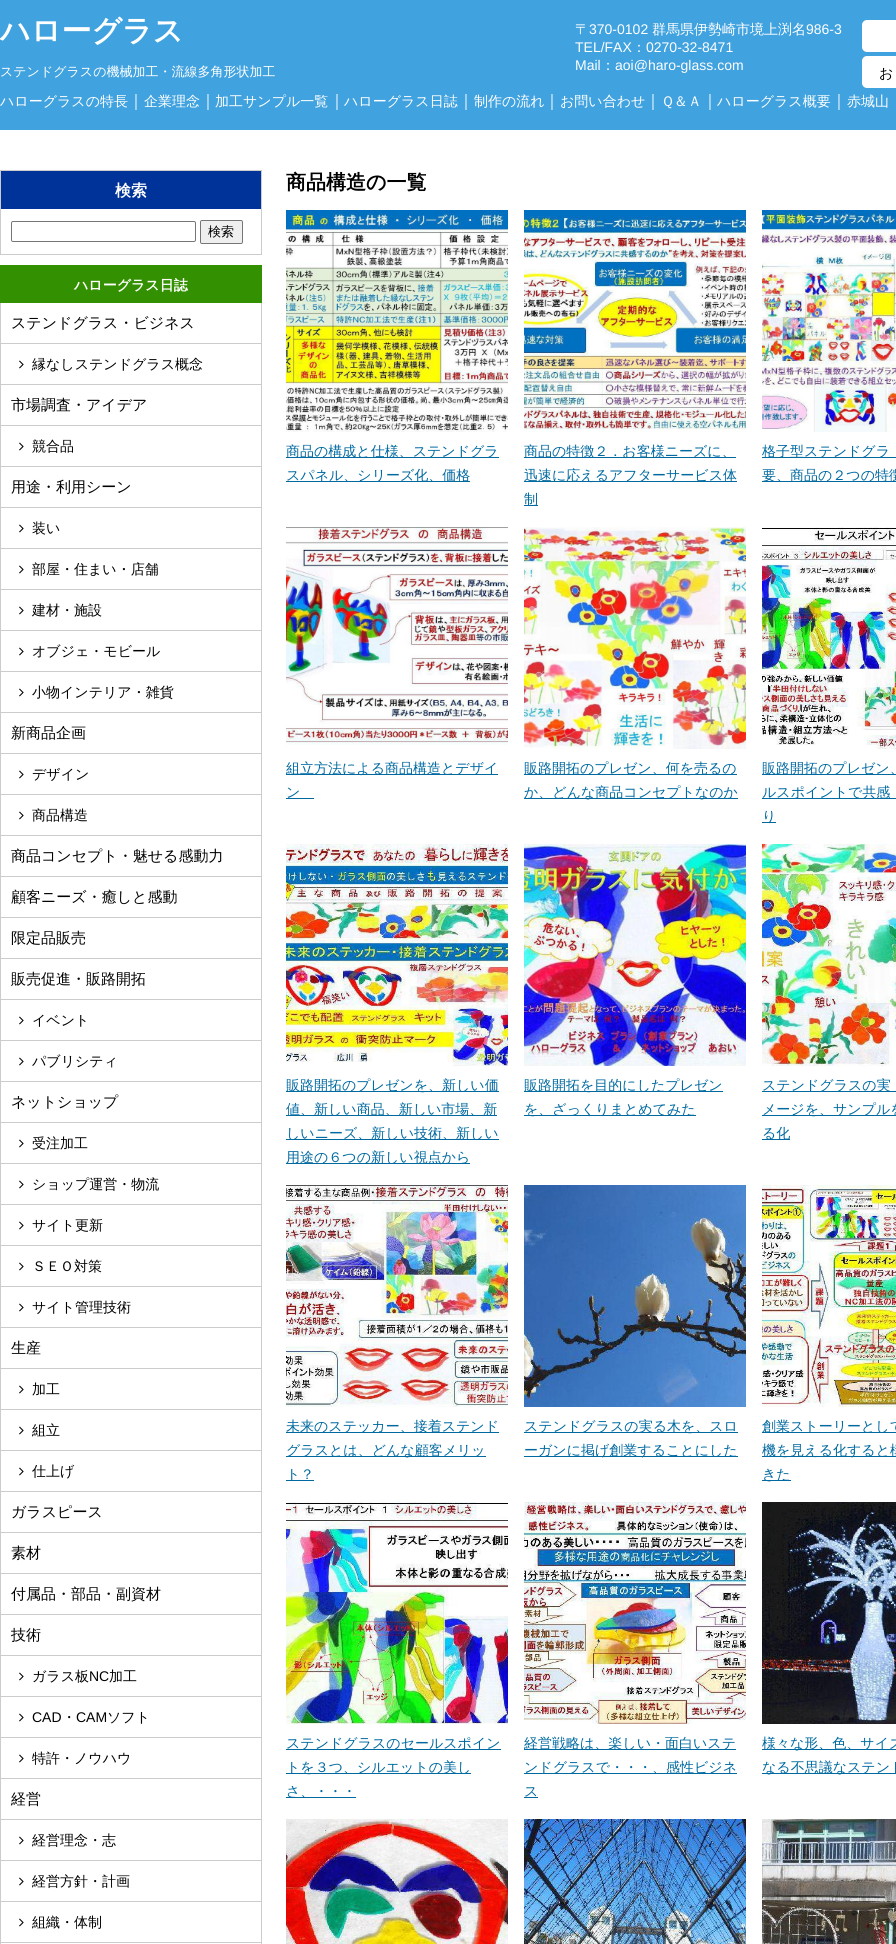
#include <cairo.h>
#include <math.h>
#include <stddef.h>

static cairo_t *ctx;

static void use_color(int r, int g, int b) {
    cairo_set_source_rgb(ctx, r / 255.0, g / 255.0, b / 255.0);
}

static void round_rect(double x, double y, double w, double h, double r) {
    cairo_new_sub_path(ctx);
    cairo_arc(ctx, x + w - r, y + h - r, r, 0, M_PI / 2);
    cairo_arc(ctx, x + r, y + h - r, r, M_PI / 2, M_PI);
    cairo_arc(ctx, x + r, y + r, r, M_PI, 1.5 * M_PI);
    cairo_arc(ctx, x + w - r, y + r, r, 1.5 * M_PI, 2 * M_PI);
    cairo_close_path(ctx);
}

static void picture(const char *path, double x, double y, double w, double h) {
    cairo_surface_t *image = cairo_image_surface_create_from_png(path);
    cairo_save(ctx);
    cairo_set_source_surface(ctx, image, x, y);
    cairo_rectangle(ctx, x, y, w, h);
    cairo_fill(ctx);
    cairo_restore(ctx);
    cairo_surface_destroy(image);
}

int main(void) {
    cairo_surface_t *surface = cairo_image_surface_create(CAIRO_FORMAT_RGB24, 896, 1944);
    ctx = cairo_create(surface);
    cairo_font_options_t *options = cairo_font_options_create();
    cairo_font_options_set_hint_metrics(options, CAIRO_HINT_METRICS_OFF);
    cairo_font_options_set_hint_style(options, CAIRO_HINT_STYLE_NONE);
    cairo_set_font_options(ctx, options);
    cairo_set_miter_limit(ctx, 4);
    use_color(255, 255, 255);
    cairo_paint(ctx);
    use_color(64, 162, 223);
    cairo_rectangle(ctx, 0, 0, 896, 130);
    cairo_fill(ctx);
    cairo_select_font_face(ctx, "WenQuanYi Zen Hei", CAIRO_FONT_SLANT_NORMAL, CAIRO_FONT_WEIGHT_BOLD);
    cairo_set_font_size(ctx, 30);
    use_color(255, 255, 255);
    cairo_move_to(ctx, 0, 41);
    cairo_show_text(ctx, "ハローグラス");
    cairo_select_font_face(ctx, "WenQuanYi Zen Hei Medium", CAIRO_FONT_SLANT_NORMAL, CAIRO_FONT_WEIGHT_NORMAL);
    cairo_set_font_size(ctx, 14);
    cairo_move_to(ctx, 575, 34);
    cairo_show_text(ctx, "〒");
    cairo_select_font_face(ctx, "Liberation Sans", CAIRO_FONT_SLANT_NORMAL, CAIRO_FONT_WEIGHT_NORMAL);
    cairo_move_to(ctx, 589, 34);
    cairo_show_text(ctx, "370-0102");
    cairo_select_font_face(ctx, "WenQuanYi Zen Hei Medium", CAIRO_FONT_SLANT_NORMAL, CAIRO_FONT_WEIGHT_NORMAL);
    cairo_move_to(ctx, 652, 34);
    cairo_show_text(ctx, "群馬県伊勢崎市境上渕名");
    cairo_select_font_face(ctx, "Liberation Sans", CAIRO_FONT_SLANT_NORMAL, CAIRO_FONT_WEIGHT_NORMAL);
    cairo_move_to(ctx, 806, 34);
    cairo_show_text(ctx, "986-3");
    cairo_move_to(ctx, 575, 52);
    cairo_show_text(ctx, "TEL/FAX");
    cairo_select_font_face(ctx, "WenQuanYi Zen Hei Medium", CAIRO_FONT_SLANT_NORMAL, CAIRO_FONT_WEIGHT_NORMAL);
    cairo_move_to(ctx, 632, 52);
    cairo_show_text(ctx, "：");
    cairo_select_font_face(ctx, "Liberation Sans", CAIRO_FONT_SLANT_NORMAL, CAIRO_FONT_WEIGHT_NORMAL);
    cairo_move_to(ctx, 646, 52);
    cairo_show_text(ctx, "0270-32-8471");
    cairo_move_to(ctx, 575, 70);
    cairo_show_text(ctx, "Mail");
    cairo_select_font_face(ctx, "WenQuanYi Zen Hei Medium", CAIRO_FONT_SLANT_NORMAL, CAIRO_FONT_WEIGHT_NORMAL);
    cairo_move_to(ctx, 601, 70);
    cairo_show_text(ctx, "：");
    cairo_select_font_face(ctx, "Liberation Sans", CAIRO_FONT_SLANT_NORMAL, CAIRO_FONT_WEIGHT_NORMAL);
    cairo_move_to(ctx, 615, 70);
    cairo_show_text(ctx, "aoi@haro-glass.com");
    round_rect(862, 20, 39, 32, 5);
    cairo_fill(ctx);
    round_rect(862, 56, 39, 32, 5);
    cairo_fill(ctx);
    cairo_select_font_face(ctx, "WenQuanYi Zen Hei Medium", CAIRO_FONT_SLANT_NORMAL, CAIRO_FONT_WEIGHT_NORMAL);
    use_color(0, 0, 0);
    cairo_move_to(ctx, 879, 78);
    cairo_show_text(ctx, "お");
    cairo_set_font_size(ctx, 13);
    use_color(255, 255, 255);
    cairo_move_to(ctx, 0, 76);
    cairo_show_text(ctx, "ステンドグラスの機械加工・流線多角形状加工");
    cairo_set_font_size(ctx, 14);
    cairo_move_to(ctx, 0, 106);
    cairo_show_text(ctx, "ハローグラスの特長");
    cairo_set_font_size(ctx, 16);
    cairo_move_to(ctx, 128, 106);
    cairo_show_text(ctx, "｜");
    cairo_set_font_size(ctx, 14);
    cairo_move_to(ctx, 144, 106);
    cairo_show_text(ctx, "企業理念");
    cairo_set_font_size(ctx, 16);
    cairo_move_to(ctx, 200, 106);
    cairo_show_text(ctx, "｜");
    cairo_set_font_size(ctx, 14);
    cairo_move_to(ctx, 215, 106);
    cairo_show_text(ctx, "加工サンプル一覧");
    cairo_set_font_size(ctx, 16);
    cairo_move_to(ctx, 329, 106);
    cairo_show_text(ctx, "｜");
    cairo_set_font_size(ctx, 14);
    cairo_move_to(ctx, 344, 106);
    cairo_show_text(ctx, "ハローグラス日誌");
    cairo_set_font_size(ctx, 16);
    cairo_move_to(ctx, 458, 106);
    cairo_show_text(ctx, "｜");
    cairo_set_font_size(ctx, 14);
    cairo_move_to(ctx, 474, 106);
    cairo_show_text(ctx, "制作の流れ");
    cairo_set_font_size(ctx, 16);
    cairo_move_to(ctx, 544, 106);
    cairo_show_text(ctx, "｜");
    cairo_set_font_size(ctx, 14);
    cairo_move_to(ctx, 560, 106);
    cairo_show_text(ctx, "お問い合わせ");
    cairo_set_font_size(ctx, 16);
    cairo_move_to(ctx, 645, 106);
    cairo_show_text(ctx, "｜");
    cairo_set_font_size(ctx, 14);
    cairo_move_to(ctx, 661, 106);
    cairo_show_text(ctx, "Ｑ＆Ａ");
    cairo_set_font_size(ctx, 16);
    cairo_move_to(ctx, 702, 106);
    cairo_show_text(ctx, "｜");
    cairo_set_font_size(ctx, 14);
    cairo_move_to(ctx, 717, 106);
    cairo_show_text(ctx, "ハローグラス概要");
    cairo_set_font_size(ctx, 16);
    cairo_move_to(ctx, 831, 106);
    cairo_show_text(ctx, "｜");
    cairo_set_font_size(ctx, 14);
    cairo_move_to(ctx, 847, 106);
    cairo_show_text(ctx, "赤城山");
    cairo_rectangle(ctx, 0.5, 170.5, 261, 84);
    use_color(204, 204, 204);
    cairo_set_line_width(ctx, 1);
    cairo_stroke(ctx);
    use_color(0, 51, 153);
    cairo_rectangle(ctx, 1, 171, 260, 38);
    cairo_fill(ctx);
    cairo_select_font_face(ctx, "WenQuanYi Zen Hei", CAIRO_FONT_SLANT_NORMAL, CAIRO_FONT_WEIGHT_BOLD);
    cairo_set_font_size(ctx, 16);
    use_color(255, 255, 255);
    cairo_move_to(ctx, 115, 196);
    cairo_show_text(ctx, "検索");
    round_rect(11.5, 221.5, 184, 20, 1.5);
    use_color(118, 118, 118);
    cairo_stroke(ctx);
    use_color(239, 239, 239);
    round_rect(200.5, 220.5, 42, 23, 1.5);
    cairo_fill_preserve(ctx);
    use_color(118, 118, 118);
    cairo_stroke(ctx);
    cairo_select_font_face(ctx, "WenQuanYi Zen Hei Medium", CAIRO_FONT_SLANT_NORMAL, CAIRO_FONT_WEIGHT_NORMAL);
    cairo_set_font_size(ctx, 13);
    use_color(0, 0, 0);
    cairo_move_to(ctx, 208, 236);
    cairo_show_text(ctx, "検索");
    use_color(51, 144, 0);
    cairo_rectangle(ctx, 0, 265, 262, 38);
    cairo_fill(ctx);
    cairo_select_font_face(ctx, "WenQuanYi Zen Hei", CAIRO_FONT_SLANT_NORMAL, CAIRO_FONT_WEIGHT_BOLD);
    cairo_set_font_size(ctx, 14);
    use_color(255, 255, 255);
    cairo_move_to(ctx, 74, 290);
    cairo_show_text(ctx, "ハローグラス日誌");
    use_color(204, 204, 204);
    cairo_rectangle(ctx, 261, 303, 1, 1641);
    cairo_fill(ctx);
    cairo_rectangle(ctx, 0, 343, 262, 1);
    cairo_fill(ctx);
    cairo_rectangle(ctx, 0, 303, 1, 41);
    cairo_fill(ctx);
    cairo_select_font_face(ctx, "WenQuanYi Zen Hei Medium", CAIRO_FONT_SLANT_NORMAL, CAIRO_FONT_WEIGHT_NORMAL);
    cairo_set_font_size(ctx, 15);
    use_color(0, 0, 0);
    cairo_move_to(ctx, 11, 328);
    cairo_show_text(ctx, "ステンドグラス・ビジネス");
    use_color(204, 204, 204);
    cairo_rectangle(ctx, 0, 384, 262, 1);
    cairo_fill(ctx);
    cairo_rectangle(ctx, 0, 344, 1, 41);
    cairo_fill(ctx);
    picture("img1.png", 19, 360, 5, 9);
    cairo_set_font_size(ctx, 14);
    use_color(0, 0, 0);
    cairo_move_to(ctx, 32, 369);
    cairo_show_text(ctx, "縁なしステンドグラス概念");
    use_color(204, 204, 204);
    cairo_rectangle(ctx, 0, 425, 262, 1);
    cairo_fill(ctx);
    cairo_rectangle(ctx, 0, 385, 1, 41);
    cairo_fill(ctx);
    cairo_set_font_size(ctx, 15);
    use_color(0, 0, 0);
    cairo_move_to(ctx, 11, 410);
    cairo_show_text(ctx, "市場調査・アイデア");
    use_color(204, 204, 204);
    cairo_rectangle(ctx, 0, 466, 262, 1);
    cairo_fill(ctx);
    cairo_rectangle(ctx, 0, 426, 1, 41);
    cairo_fill(ctx);
    picture("img1.png", 19, 442, 5, 9);
    cairo_set_font_size(ctx, 14);
    use_color(0, 0, 0);
    cairo_move_to(ctx, 32, 451);
    cairo_show_text(ctx, "競合品");
    use_color(204, 204, 204);
    cairo_rectangle(ctx, 0, 507, 262, 1);
    cairo_fill(ctx);
    cairo_rectangle(ctx, 0, 467, 1, 41);
    cairo_fill(ctx);
    cairo_set_font_size(ctx, 15);
    use_color(0, 0, 0);
    cairo_move_to(ctx, 11, 492);
    cairo_show_text(ctx, "用途・利用シーン");
    use_color(204, 204, 204);
    cairo_rectangle(ctx, 0, 548, 262, 1);
    cairo_fill(ctx);
    cairo_rectangle(ctx, 0, 508, 1, 41);
    cairo_fill(ctx);
    picture("img1.png", 19, 524, 5, 9);
    cairo_set_font_size(ctx, 14);
    use_color(0, 0, 0);
    cairo_move_to(ctx, 32, 533);
    cairo_show_text(ctx, "装い");
    use_color(204, 204, 204);
    cairo_rectangle(ctx, 0, 589, 262, 1);
    cairo_fill(ctx);
    cairo_rectangle(ctx, 0, 549, 1, 41);
    cairo_fill(ctx);
    picture("img1.png", 19, 565, 5, 9);
    use_color(0, 0, 0);
    cairo_move_to(ctx, 32, 574);
    cairo_show_text(ctx, "部屋・住まい・店舗");
    use_color(204, 204, 204);
    cairo_rectangle(ctx, 0, 630, 262, 1);
    cairo_fill(ctx);
    cairo_rectangle(ctx, 0, 590, 1, 41);
    cairo_fill(ctx);
    picture("img1.png", 19, 606, 5, 9);
    use_color(0, 0, 0);
    cairo_move_to(ctx, 32, 615);
    cairo_show_text(ctx, "建材・施設");
    use_color(204, 204, 204);
    cairo_rectangle(ctx, 0, 671, 262, 1);
    cairo_fill(ctx);
    cairo_rectangle(ctx, 0, 631, 1, 41);
    cairo_fill(ctx);
    picture("img1.png", 19, 647, 5, 9);
    use_color(0, 0, 0);
    cairo_move_to(ctx, 32, 656);
    cairo_show_text(ctx, "オブジェ・モビール");
    use_color(204, 204, 204);
    cairo_rectangle(ctx, 0, 712, 262, 1);
    cairo_fill(ctx);
    cairo_rectangle(ctx, 0, 672, 1, 41);
    cairo_fill(ctx);
    picture("img1.png", 19, 688, 5, 9);
    use_color(0, 0, 0);
    cairo_move_to(ctx, 32, 697);
    cairo_show_text(ctx, "小物インテリア・雑貨");
    use_color(204, 204, 204);
    cairo_rectangle(ctx, 0, 753, 262, 1);
    cairo_fill(ctx);
    cairo_rectangle(ctx, 0, 713, 1, 41);
    cairo_fill(ctx);
    cairo_set_font_size(ctx, 15);
    use_color(0, 0, 0);
    cairo_move_to(ctx, 11, 738);
    cairo_show_text(ctx, "新商品企画");
    use_color(204, 204, 204);
    cairo_rectangle(ctx, 0, 794, 262, 1);
    cairo_fill(ctx);
    cairo_rectangle(ctx, 0, 754, 1, 41);
    cairo_fill(ctx);
    picture("img1.png", 19, 770, 5, 9);
    cairo_set_font_size(ctx, 14);
    use_color(0, 0, 0);
    cairo_move_to(ctx, 32, 779);
    cairo_show_text(ctx, "デザイン");
    use_color(204, 204, 204);
    cairo_rectangle(ctx, 0, 835, 262, 1);
    cairo_fill(ctx);
    cairo_rectangle(ctx, 0, 795, 1, 41);
    cairo_fill(ctx);
    picture("img1.png", 19, 811, 5, 9);
    use_color(0, 0, 0);
    cairo_move_to(ctx, 32, 820);
    cairo_show_text(ctx, "商品構造");
    use_color(204, 204, 204);
    cairo_rectangle(ctx, 0, 876, 262, 1);
    cairo_fill(ctx);
    cairo_rectangle(ctx, 0, 836, 1, 41);
    cairo_fill(ctx);
    cairo_set_font_size(ctx, 15);
    use_color(0, 0, 0);
    cairo_move_to(ctx, 11, 861);
    cairo_show_text(ctx, "商品コンセプト・魅せる感動力");
    use_color(204, 204, 204);
    cairo_rectangle(ctx, 0, 917, 262, 1);
    cairo_fill(ctx);
    cairo_rectangle(ctx, 0, 877, 1, 41);
    cairo_fill(ctx);
    use_color(0, 0, 0);
    cairo_move_to(ctx, 11, 902);
    cairo_show_text(ctx, "顧客ニーズ・癒しと感動");
    use_color(204, 204, 204);
    cairo_rectangle(ctx, 0, 958, 262, 1);
    cairo_fill(ctx);
    cairo_rectangle(ctx, 0, 918, 1, 41);
    cairo_fill(ctx);
    use_color(0, 0, 0);
    cairo_move_to(ctx, 11, 943);
    cairo_show_text(ctx, "限定品販売");
    use_color(204, 204, 204);
    cairo_rectangle(ctx, 0, 999, 262, 1);
    cairo_fill(ctx);
    cairo_rectangle(ctx, 0, 959, 1, 41);
    cairo_fill(ctx);
    use_color(0, 0, 0);
    cairo_move_to(ctx, 11, 984);
    cairo_show_text(ctx, "販売促進・販路開拓");
    use_color(204, 204, 204);
    cairo_rectangle(ctx, 0, 1040, 262, 1);
    cairo_fill(ctx);
    cairo_rectangle(ctx, 0, 1000, 1, 41);
    cairo_fill(ctx);
    picture("img1.png", 19, 1016, 5, 9);
    cairo_set_font_size(ctx, 14);
    use_color(0, 0, 0);
    cairo_move_to(ctx, 32, 1025);
    cairo_show_text(ctx, "イベント");
    use_color(204, 204, 204);
    cairo_rectangle(ctx, 0, 1081, 262, 1);
    cairo_fill(ctx);
    cairo_rectangle(ctx, 0, 1041, 1, 41);
    cairo_fill(ctx);
    picture("img1.png", 19, 1057, 5, 9);
    use_color(0, 0, 0);
    cairo_move_to(ctx, 32, 1066);
    cairo_show_text(ctx, "パブリシティ");
    use_color(204, 204, 204);
    cairo_rectangle(ctx, 0, 1122, 262, 1);
    cairo_fill(ctx);
    cairo_rectangle(ctx, 0, 1082, 1, 41);
    cairo_fill(ctx);
    cairo_set_font_size(ctx, 15);
    use_color(0, 0, 0);
    cairo_move_to(ctx, 11, 1107);
    cairo_show_text(ctx, "ネットショップ");
    use_color(204, 204, 204);
    cairo_rectangle(ctx, 0, 1163, 262, 1);
    cairo_fill(ctx);
    cairo_rectangle(ctx, 0, 1123, 1, 41);
    cairo_fill(ctx);
    picture("img1.png", 19, 1139, 5, 9);
    cairo_set_font_size(ctx, 14);
    use_color(0, 0, 0);
    cairo_move_to(ctx, 32, 1148);
    cairo_show_text(ctx, "受注加工");
    use_color(204, 204, 204);
    cairo_rectangle(ctx, 0, 1204, 262, 1);
    cairo_fill(ctx);
    cairo_rectangle(ctx, 0, 1164, 1, 41);
    cairo_fill(ctx);
    picture("img1.png", 19, 1180, 5, 9);
    use_color(0, 0, 0);
    cairo_move_to(ctx, 32, 1189);
    cairo_show_text(ctx, "ショップ運営・物流");
    use_color(204, 204, 204);
    cairo_rectangle(ctx, 0, 1245, 262, 1);
    cairo_fill(ctx);
    cairo_rectangle(ctx, 0, 1205, 1, 41);
    cairo_fill(ctx);
    picture("img1.png", 19, 1221, 5, 9);
    use_color(0, 0, 0);
    cairo_move_to(ctx, 32, 1230);
    cairo_show_text(ctx, "サイト更新");
    use_color(204, 204, 204);
    cairo_rectangle(ctx, 0, 1286, 262, 1);
    cairo_fill(ctx);
    cairo_rectangle(ctx, 0, 1246, 1, 41);
    cairo_fill(ctx);
    picture("img1.png", 19, 1262, 5, 9);
    use_color(0, 0, 0);
    cairo_move_to(ctx, 32, 1271);
    cairo_show_text(ctx, "ＳＥＯ対策");
    use_color(204, 204, 204);
    cairo_rectangle(ctx, 0, 1327, 262, 1);
    cairo_fill(ctx);
    cairo_rectangle(ctx, 0, 1287, 1, 41);
    cairo_fill(ctx);
    picture("img1.png", 19, 1303, 5, 9);
    use_color(0, 0, 0);
    cairo_move_to(ctx, 32, 1312);
    cairo_show_text(ctx, "サイト管理技術");
    use_color(204, 204, 204);
    cairo_rectangle(ctx, 0, 1368, 262, 1);
    cairo_fill(ctx);
    cairo_rectangle(ctx, 0, 1328, 1, 41);
    cairo_fill(ctx);
    cairo_set_font_size(ctx, 15);
    use_color(0, 0, 0);
    cairo_move_to(ctx, 11, 1353);
    cairo_show_text(ctx, "生産");
    use_color(204, 204, 204);
    cairo_rectangle(ctx, 0, 1409, 262, 1);
    cairo_fill(ctx);
    cairo_rectangle(ctx, 0, 1369, 1, 41);
    cairo_fill(ctx);
    picture("img1.png", 19, 1385, 5, 9);
    cairo_set_font_size(ctx, 14);
    use_color(0, 0, 0);
    cairo_move_to(ctx, 32, 1394);
    cairo_show_text(ctx, "加工");
    use_color(204, 204, 204);
    cairo_rectangle(ctx, 0, 1450, 262, 1);
    cairo_fill(ctx);
    cairo_rectangle(ctx, 0, 1410, 1, 41);
    cairo_fill(ctx);
    picture("img1.png", 19, 1426, 5, 9);
    use_color(0, 0, 0);
    cairo_move_to(ctx, 32, 1435);
    cairo_show_text(ctx, "組立");
    use_color(204, 204, 204);
    cairo_rectangle(ctx, 0, 1491, 262, 1);
    cairo_fill(ctx);
    cairo_rectangle(ctx, 0, 1451, 1, 41);
    cairo_fill(ctx);
    picture("img1.png", 19, 1467, 5, 9);
    use_color(0, 0, 0);
    cairo_move_to(ctx, 32, 1476);
    cairo_show_text(ctx, "仕上げ");
    use_color(204, 204, 204);
    cairo_rectangle(ctx, 0, 1532, 262, 1);
    cairo_fill(ctx);
    cairo_rectangle(ctx, 0, 1492, 1, 41);
    cairo_fill(ctx);
    cairo_set_font_size(ctx, 15);
    use_color(0, 0, 0);
    cairo_move_to(ctx, 11, 1517);
    cairo_show_text(ctx, "ガラスピース");
    use_color(204, 204, 204);
    cairo_rectangle(ctx, 0, 1573, 262, 1);
    cairo_fill(ctx);
    cairo_rectangle(ctx, 0, 1533, 1, 41);
    cairo_fill(ctx);
    use_color(0, 0, 0);
    cairo_move_to(ctx, 11, 1558);
    cairo_show_text(ctx, "素材");
    use_color(204, 204, 204);
    cairo_rectangle(ctx, 0, 1614, 262, 1);
    cairo_fill(ctx);
    cairo_rectangle(ctx, 0, 1574, 1, 41);
    cairo_fill(ctx);
    use_color(0, 0, 0);
    cairo_move_to(ctx, 11, 1599);
    cairo_show_text(ctx, "付属品・部品・副資材");
    use_color(204, 204, 204);
    cairo_rectangle(ctx, 0, 1655, 262, 1);
    cairo_fill(ctx);
    cairo_rectangle(ctx, 0, 1615, 1, 41);
    cairo_fill(ctx);
    use_color(0, 0, 0);
    cairo_move_to(ctx, 11, 1640);
    cairo_show_text(ctx, "技術");
    use_color(204, 204, 204);
    cairo_rectangle(ctx, 0, 1696, 262, 1);
    cairo_fill(ctx);
    cairo_rectangle(ctx, 0, 1656, 1, 41);
    cairo_fill(ctx);
    picture("img1.png", 19, 1672, 5, 9);
    cairo_set_font_size(ctx, 14);
    use_color(0, 0, 0);
    cairo_move_to(ctx, 32, 1681);
    cairo_show_text(ctx, "ガラス板");
    cairo_select_font_face(ctx, "Liberation Sans", CAIRO_FONT_SLANT_NORMAL, CAIRO_FONT_WEIGHT_NORMAL);
    cairo_move_to(ctx, 89, 1681);
    cairo_show_text(ctx, "NC");
    cairo_select_font_face(ctx, "WenQuanYi Zen Hei Medium", CAIRO_FONT_SLANT_NORMAL, CAIRO_FONT_WEIGHT_NORMAL);
    cairo_move_to(ctx, 109, 1681);
    cairo_show_text(ctx, "加工");
    use_color(204, 204, 204);
    cairo_rectangle(ctx, 0, 1737, 262, 1);
    cairo_fill(ctx);
    cairo_rectangle(ctx, 0, 1697, 1, 41);
    cairo_fill(ctx);
    picture("img1.png", 19, 1713, 5, 9);
    cairo_select_font_face(ctx, "Liberation Sans", CAIRO_FONT_SLANT_NORMAL, CAIRO_FONT_WEIGHT_NORMAL);
    use_color(0, 0, 0);
    cairo_move_to(ctx, 32, 1722);
    cairo_show_text(ctx, "CAD");
    cairo_select_font_face(ctx, "WenQuanYi Zen Hei Medium", CAIRO_FONT_SLANT_NORMAL, CAIRO_FONT_WEIGHT_NORMAL);
    cairo_move_to(ctx, 62, 1722);
    cairo_show_text(ctx, "・");
    cairo_select_font_face(ctx, "Liberation Sans", CAIRO_FONT_SLANT_NORMAL, CAIRO_FONT_WEIGHT_NORMAL);
    cairo_move_to(ctx, 76, 1722);
    cairo_show_text(ctx, "CAM");
    cairo_select_font_face(ctx, "WenQuanYi Zen Hei Medium", CAIRO_FONT_SLANT_NORMAL, CAIRO_FONT_WEIGHT_NORMAL);
    cairo_move_to(ctx, 107, 1722);
    cairo_show_text(ctx, "ソフト");
    use_color(204, 204, 204);
    cairo_rectangle(ctx, 0, 1778, 262, 1);
    cairo_fill(ctx);
    cairo_rectangle(ctx, 0, 1738, 1, 41);
    cairo_fill(ctx);
    picture("img1.png", 19, 1754, 5, 9);
    use_color(0, 0, 0);
    cairo_move_to(ctx, 32, 1763);
    cairo_show_text(ctx, "特許・ノウハウ");
    use_color(204, 204, 204);
    cairo_rectangle(ctx, 0, 1819, 262, 1);
    cairo_fill(ctx);
    cairo_rectangle(ctx, 0, 1779, 1, 41);
    cairo_fill(ctx);
    cairo_set_font_size(ctx, 15);
    use_color(0, 0, 0);
    cairo_move_to(ctx, 11, 1804);
    cairo_show_text(ctx, "経営");
    use_color(204, 204, 204);
    cairo_rectangle(ctx, 0, 1860, 262, 1);
    cairo_fill(ctx);
    cairo_rectangle(ctx, 0, 1820, 1, 41);
    cairo_fill(ctx);
    picture("img1.png", 19, 1836, 5, 9);
    cairo_set_font_size(ctx, 14);
    use_color(0, 0, 0);
    cairo_move_to(ctx, 32, 1845);
    cairo_show_text(ctx, "経営理念・志");
    use_color(204, 204, 204);
    cairo_rectangle(ctx, 0, 1901, 262, 1);
    cairo_fill(ctx);
    cairo_rectangle(ctx, 0, 1861, 1, 41);
    cairo_fill(ctx);
    picture("img1.png", 19, 1877, 5, 9);
    use_color(0, 0, 0);
    cairo_move_to(ctx, 32, 1886);
    cairo_show_text(ctx, "経営方針・計画");
    use_color(204, 204, 204);
    cairo_rectangle(ctx, 0, 1942, 262, 1);
    cairo_fill(ctx);
    cairo_rectangle(ctx, 0, 1902, 1, 42);
    cairo_fill(ctx);
    picture("img1.png", 19, 1918, 5, 9);
    use_color(0, 0, 0);
    cairo_move_to(ctx, 32, 1927);
    cairo_show_text(ctx, "組織・体制");
    cairo_select_font_face(ctx, "WenQuanYi Zen Hei", CAIRO_FONT_SLANT_NORMAL, CAIRO_FONT_WEIGHT_BOLD);
    cairo_set_font_size(ctx, 20);
    cairo_move_to(ctx, 286, 189);
    cairo_show_text(ctx, "商品構造の一覧");
    picture("img2.png", 286, 210, 222, 222);
    use_color(0, 105, 160);
    cairo_rectangle(ctx, 286, 457, 213, 1);
    cairo_fill(ctx);
    cairo_select_font_face(ctx, "WenQuanYi Zen Hei Medium", CAIRO_FONT_SLANT_NORMAL, CAIRO_FONT_WEIGHT_NORMAL);
    cairo_set_font_size(ctx, 14);
    cairo_move_to(ctx, 286, 456);
    cairo_show_text(ctx, "商品の構成と仕様、ステンドグラ");
    cairo_rectangle(ctx, 286, 481, 184, 1);
    cairo_fill(ctx);
    cairo_move_to(ctx, 286, 480);
    cairo_show_text(ctx, "スパネル、シリーズ化、価格");
    picture("img3.png", 524, 210, 222, 222);
    cairo_rectangle(ctx, 524, 457, 212, 1);
    cairo_fill(ctx);
    cairo_move_to(ctx, 524, 456);
    cairo_show_text(ctx, "商品の特徴２．お客様ニーズに、");
    cairo_rectangle(ctx, 524, 481, 213, 1);
    cairo_fill(ctx);
    cairo_move_to(ctx, 524, 480);
    cairo_show_text(ctx, "迅速に応えるアフターサービス体");
    cairo_rectangle(ctx, 524, 505, 14, 1);
    cairo_fill(ctx);
    cairo_move_to(ctx, 524, 504);
    cairo_show_text(ctx, "制");
    picture("img4.png", 762, 210, 134, 222);
    cairo_rectangle(ctx, 762, 457, 134, 1);
    cairo_fill(ctx);
    cairo_move_to(ctx, 762, 456);
    cairo_show_text(ctx, "格子型ステンドグラ");
    cairo_rectangle(ctx, 762, 481, 134, 1);
    cairo_fill(ctx);
    cairo_move_to(ctx, 762, 480);
    cairo_show_text(ctx, "要、商品の２つの特徴");
    picture("img5.png", 286, 527, 222, 218);
    cairo_rectangle(ctx, 286, 774, 212, 1);
    cairo_fill(ctx);
    cairo_move_to(ctx, 286, 773);
    cairo_show_text(ctx, "組立方法による商品構造とデザイ");
    cairo_move_to(ctx, 286, 797);
    cairo_show_text(ctx, "ン");
    cairo_rectangle(ctx, 286, 798, 28, 1);
    cairo_fill(ctx);
    picture("img6.png", 524, 527, 222, 222);
    cairo_rectangle(ctx, 524, 774, 213, 1);
    cairo_fill(ctx);
    cairo_move_to(ctx, 524, 773);
    cairo_show_text(ctx, "販路開拓のプレゼン、何を売るの");
    cairo_rectangle(ctx, 524, 798, 214, 1);
    cairo_fill(ctx);
    cairo_move_to(ctx, 524, 797);
    cairo_show_text(ctx, "か、どんな商品コンセプトなのか");
    picture("img7.png", 762, 527, 134, 222);
    cairo_rectangle(ctx, 762, 774, 134, 1);
    cairo_fill(ctx);
    cairo_move_to(ctx, 762, 773);
    cairo_show_text(ctx, "販路開拓のプレゼン、");
    cairo_rectangle(ctx, 762, 798, 134, 1);
    cairo_fill(ctx);
    cairo_move_to(ctx, 762, 797);
    cairo_show_text(ctx, "ルスポイントで共感");
    cairo_rectangle(ctx, 762, 822, 14, 1);
    cairo_fill(ctx);
    cairo_move_to(ctx, 762, 821);
    cairo_show_text(ctx, "り");
    picture("img8.png", 286, 844, 222, 222);
    cairo_rectangle(ctx, 286, 1091, 213, 1);
    cairo_fill(ctx);
    cairo_move_to(ctx, 286, 1090);
    cairo_show_text(ctx, "販路開拓のプレゼンを、新しい価");
    cairo_rectangle(ctx, 286, 1115, 211, 1);
    cairo_fill(ctx);
    cairo_move_to(ctx, 286, 1114);
    cairo_show_text(ctx, "値、新しい商品、新しい市場、新");
    cairo_rectangle(ctx, 286, 1139, 213, 1);
    cairo_fill(ctx);
    cairo_move_to(ctx, 286, 1138);
    cairo_show_text(ctx, "しいニーズ、新しい技術、新しい");
    cairo_rectangle(ctx, 286, 1163, 184, 1);
    cairo_fill(ctx);
    cairo_move_to(ctx, 286, 1162);
    cairo_show_text(ctx, "用途の６つの新しい視点から");
    picture("img9.png", 524, 844, 222, 222);
    cairo_rectangle(ctx, 524, 1091, 199, 1);
    cairo_fill(ctx);
    cairo_move_to(ctx, 524, 1090);
    cairo_show_text(ctx, "販路開拓を目的にしたプレゼン");
    cairo_rectangle(ctx, 524, 1115, 172, 1);
    cairo_fill(ctx);
    cairo_move_to(ctx, 524, 1114);
    cairo_show_text(ctx, "を、ざっくりまとめてみた");
    picture("img10.png", 762, 844, 134, 222);
    cairo_rectangle(ctx, 762, 1091, 134, 1);
    cairo_fill(ctx);
    cairo_move_to(ctx, 762, 1090);
    cairo_show_text(ctx, "ステンドグラスの実");
    cairo_rectangle(ctx, 762, 1115, 134, 1);
    cairo_fill(ctx);
    cairo_move_to(ctx, 762, 1114);
    cairo_show_text(ctx, "メージを、サンプルを");
    cairo_rectangle(ctx, 762, 1139, 28, 1);
    cairo_fill(ctx);
    cairo_move_to(ctx, 762, 1138);
    cairo_show_text(ctx, "る化");
    picture("img11.png", 286, 1185, 222, 222);
    cairo_rectangle(ctx, 286, 1432, 213, 1);
    cairo_fill(ctx);
    cairo_move_to(ctx, 286, 1431);
    cairo_show_text(ctx, "未来のステッカー、接着ステンド");
    cairo_rectangle(ctx, 286, 1456, 200, 1);
    cairo_fill(ctx);
    cairo_move_to(ctx, 286, 1455);
    cairo_show_text(ctx, "グラスとは、どんな顧客メリッ");
    cairo_rectangle(ctx, 286, 1480, 28, 1);
    cairo_fill(ctx);
    cairo_move_to(ctx, 286, 1479);
    cairo_show_text(ctx, "ト？");
    picture("img12.png", 524, 1185, 222, 222);
    cairo_rectangle(ctx, 524, 1432, 214, 1);
    cairo_fill(ctx);
    cairo_move_to(ctx, 524, 1431);
    cairo_show_text(ctx, "ステンドグラスの実る木を、スロ");
    cairo_rectangle(ctx, 524, 1456, 214, 1);
    cairo_fill(ctx);
    cairo_move_to(ctx, 524, 1455);
    cairo_show_text(ctx, "ーガンに掲げ創業することにした");
    picture("img13.png", 762, 1185, 134, 222);
    cairo_rectangle(ctx, 762, 1432, 134, 1);
    cairo_fill(ctx);
    cairo_move_to(ctx, 762, 1431);
    cairo_show_text(ctx, "創業ストーリーとして");
    cairo_rectangle(ctx, 762, 1456, 134, 1);
    cairo_fill(ctx);
    cairo_move_to(ctx, 762, 1455);
    cairo_show_text(ctx, "機を見える化すると構");
    cairo_rectangle(ctx, 762, 1480, 29, 1);
    cairo_fill(ctx);
    cairo_move_to(ctx, 762, 1479);
    cairo_show_text(ctx, "きた");
    picture("img14.png", 286, 1502, 222, 222);
    cairo_rectangle(ctx, 286, 1749, 215, 1);
    cairo_fill(ctx);
    cairo_move_to(ctx, 286, 1748);
    cairo_show_text(ctx, "ステンドグラスのセールスポイン");
    cairo_rectangle(ctx, 286, 1773, 185, 1);
    cairo_fill(ctx);
    cairo_move_to(ctx, 286, 1772);
    cairo_show_text(ctx, "トを３つ、シルエットの美し");
    cairo_rectangle(ctx, 286, 1797, 70, 1);
    cairo_fill(ctx);
    cairo_move_to(ctx, 286, 1796);
    cairo_show_text(ctx, "さ、・・・");
    picture("img15.png", 524, 1502, 222, 222);
    cairo_rectangle(ctx, 524, 1749, 212, 1);
    cairo_fill(ctx);
    cairo_move_to(ctx, 524, 1748);
    cairo_show_text(ctx, "経営戦略は、楽しい・面白いステ");
    cairo_rectangle(ctx, 524, 1773, 213, 1);
    cairo_fill(ctx);
    cairo_move_to(ctx, 524, 1772);
    cairo_show_text(ctx, "ンドグラスで・・・、感性ビジネ");
    cairo_move_to(ctx, 524, 1796);
    cairo_show_text(ctx, "ス");
    cairo_rectangle(ctx, 524, 1797, 14, 1);
    cairo_fill(ctx);
    picture("img16.png", 762, 1502, 134, 222);
    cairo_rectangle(ctx, 762, 1749, 134, 1);
    cairo_fill(ctx);
    cairo_move_to(ctx, 762, 1748);
    cairo_show_text(ctx, "様々な形、色、サイズ");
    cairo_rectangle(ctx, 762, 1773, 134, 1);
    cairo_fill(ctx);
    cairo_move_to(ctx, 762, 1772);
    cairo_show_text(ctx, "なる不思議なステンド");
    picture("img17.png", 286, 1819, 222, 125);
    picture("img18.png", 524, 1819, 222, 125);
    picture("img19.png", 762, 1819, 134, 125);
    cairo_surface_write_to_png(surface, "result.png");
    cairo_font_options_destroy(options);
    cairo_destroy(ctx);
    cairo_surface_destroy(surface);
    return 0;
}
